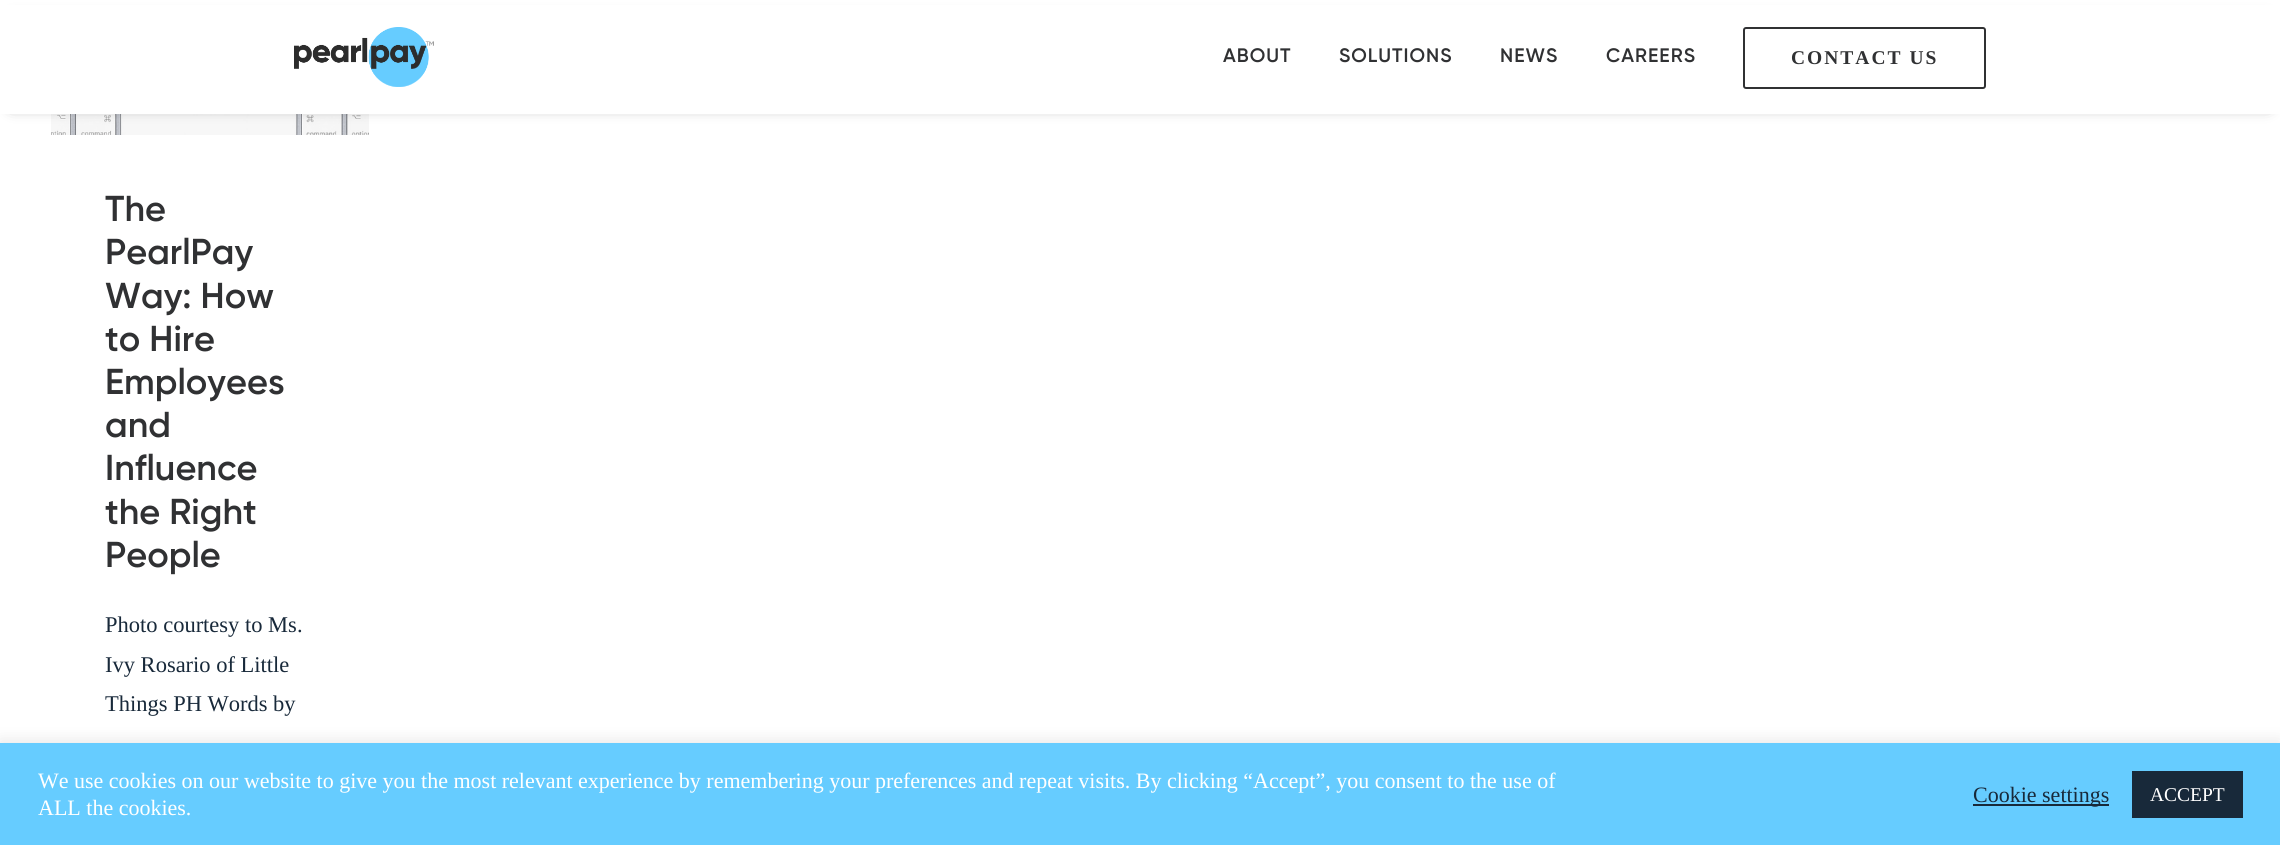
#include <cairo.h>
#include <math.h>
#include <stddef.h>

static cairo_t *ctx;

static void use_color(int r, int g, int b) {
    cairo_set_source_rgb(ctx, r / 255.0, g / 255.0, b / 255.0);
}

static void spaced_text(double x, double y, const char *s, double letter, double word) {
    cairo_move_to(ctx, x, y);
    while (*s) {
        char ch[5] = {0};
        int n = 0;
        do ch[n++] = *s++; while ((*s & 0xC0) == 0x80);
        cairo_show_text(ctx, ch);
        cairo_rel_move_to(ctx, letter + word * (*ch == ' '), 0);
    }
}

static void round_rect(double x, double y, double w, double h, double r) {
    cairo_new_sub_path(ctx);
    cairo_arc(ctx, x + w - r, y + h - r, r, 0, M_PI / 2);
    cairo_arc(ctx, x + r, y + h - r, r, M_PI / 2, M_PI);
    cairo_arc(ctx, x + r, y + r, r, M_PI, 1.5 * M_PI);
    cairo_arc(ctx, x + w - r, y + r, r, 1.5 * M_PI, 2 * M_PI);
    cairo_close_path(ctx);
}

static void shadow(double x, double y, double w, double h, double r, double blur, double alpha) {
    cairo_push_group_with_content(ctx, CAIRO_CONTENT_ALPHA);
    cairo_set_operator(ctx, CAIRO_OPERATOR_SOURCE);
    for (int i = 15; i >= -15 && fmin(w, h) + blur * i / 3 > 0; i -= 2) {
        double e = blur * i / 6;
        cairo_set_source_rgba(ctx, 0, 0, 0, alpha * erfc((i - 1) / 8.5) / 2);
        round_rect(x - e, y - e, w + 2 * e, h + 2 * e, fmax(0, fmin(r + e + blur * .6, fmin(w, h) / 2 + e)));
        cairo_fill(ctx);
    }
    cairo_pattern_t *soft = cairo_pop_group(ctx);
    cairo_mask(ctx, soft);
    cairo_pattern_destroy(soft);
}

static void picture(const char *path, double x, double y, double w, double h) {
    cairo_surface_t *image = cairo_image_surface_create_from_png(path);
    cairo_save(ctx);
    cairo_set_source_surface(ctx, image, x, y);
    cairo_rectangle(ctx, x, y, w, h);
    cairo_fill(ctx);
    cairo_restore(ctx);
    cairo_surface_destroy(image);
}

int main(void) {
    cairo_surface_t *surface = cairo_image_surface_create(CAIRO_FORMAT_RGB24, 2280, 845);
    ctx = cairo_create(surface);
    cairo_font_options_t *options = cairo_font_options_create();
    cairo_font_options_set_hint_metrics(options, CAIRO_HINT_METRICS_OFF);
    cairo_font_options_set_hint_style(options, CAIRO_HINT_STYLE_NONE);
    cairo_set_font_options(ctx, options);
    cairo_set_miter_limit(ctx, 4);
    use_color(255, 255, 255);
    cairo_paint(ctx);
    picture("img2.png", 51, 114, 318, 21);
    use_color(0, 0, 0);
    shadow(12, 21, 2256, 84, 0, 7.5, 0.6);
    use_color(255, 255, 255);
    cairo_rectangle(ctx, 0, 5, 2280, 109);
    cairo_fill(ctx);
    picture("img1.png", 294, 27, 140, 60);
    cairo_select_font_face(ctx, "Gilroy SemiBold", CAIRO_FONT_SLANT_NORMAL, CAIRO_FONT_WEIGHT_NORMAL);
    cairo_set_font_size(ctx, 19.5);
    use_color(48, 49, 51);
    spaced_text(1223, 62, "ABOUT", 1, 0);
    spaced_text(1339, 62, "SOLUTIONS", 1, 0);
    spaced_text(1500, 62, "NEWS", 1, 0);
    spaced_text(1606, 62, "CAREERS", 1, 0);
    round_rect(1744, 28, 241, 60, 2);
    cairo_stroke(ctx);
    cairo_select_font_face(ctx, "Liberation Serif", CAIRO_FONT_SLANT_NORMAL, CAIRO_FONT_WEIGHT_BOLD);
    spaced_text(1791, 64, "CONTACT US", 2, 0);
    cairo_select_font_face(ctx, "Gilroy SemiBold", CAIRO_FONT_SLANT_NORMAL, CAIRO_FONT_WEIGHT_NORMAL);
    cairo_set_font_size(ctx, 36);
    cairo_move_to(ctx, 105, 221);
    cairo_show_text(ctx, "The");
    cairo_move_to(ctx, 105, 264);
    cairo_show_text(ctx, "PearlPay");
    cairo_move_to(ctx, 105, 308);
    cairo_show_text(ctx, "Way: How");
    cairo_move_to(ctx, 105, 351);
    cairo_show_text(ctx, "to Hire");
    cairo_move_to(ctx, 105, 394);
    cairo_show_text(ctx, "Employees");
    cairo_move_to(ctx, 105, 437);
    cairo_show_text(ctx, "and");
    cairo_move_to(ctx, 105, 480);
    cairo_show_text(ctx, "Influence");
    cairo_move_to(ctx, 105, 524);
    cairo_show_text(ctx, "the Right");
    cairo_move_to(ctx, 105, 567);
    cairo_show_text(ctx, "People");
    cairo_select_font_face(ctx, "Liberation Serif", CAIRO_FONT_SLANT_NORMAL, CAIRO_FONT_WEIGHT_NORMAL);
    cairo_set_font_size(ctx, 22.5);
    use_color(24, 41, 58);
    cairo_move_to(ctx, 105, 632);
    cairo_show_text(ctx, "Photo courtesy to Ms.");
    cairo_move_to(ctx, 105, 672);
    cairo_show_text(ctx, "Ivy Rosario of Little");
    cairo_move_to(ctx, 105, 711);
    cairo_show_text(ctx, "Things PH Words by");
    use_color(172, 171, 171);
    shadow(0, 741, 2280, 104, 0, 7.5, 0.3);
    use_color(102, 204, 255);
    cairo_rectangle(ctx, 0, 743, 2280, 102);
    cairo_fill(ctx);
    cairo_set_font_size(ctx, 22);
    use_color(255, 255, 255);
    cairo_move_to(ctx, 38, 788);
    cairo_show_text(ctx, "We use cookies on our website to give you the most relevant experience by remembering your preferences and repeat visits. By clicking “Accept”, you consent to the use of");
    cairo_move_to(ctx, 38, 815);
    cairo_show_text(ctx, "ALL the cookies.");
    use_color(24, 41, 58);
    cairo_rectangle(ctx, 1973, 804, 136, 2);
    cairo_fill(ctx);
    cairo_move_to(ctx, 1973, 802);
    cairo_show_text(ctx, "Cookie settings");
    cairo_rectangle(ctx, 2132, 771, 111, 47);
    cairo_fill(ctx);
    cairo_set_font_size(ctx, 19.5);
    use_color(255, 255, 255);
    cairo_move_to(ctx, 2150, 801);
    cairo_show_text(ctx, "ACCEPT");
    cairo_surface_write_to_png(surface, "result.png");
    cairo_font_options_destroy(options);
    cairo_destroy(ctx);
    cairo_surface_destroy(surface);
    return 0;
}
